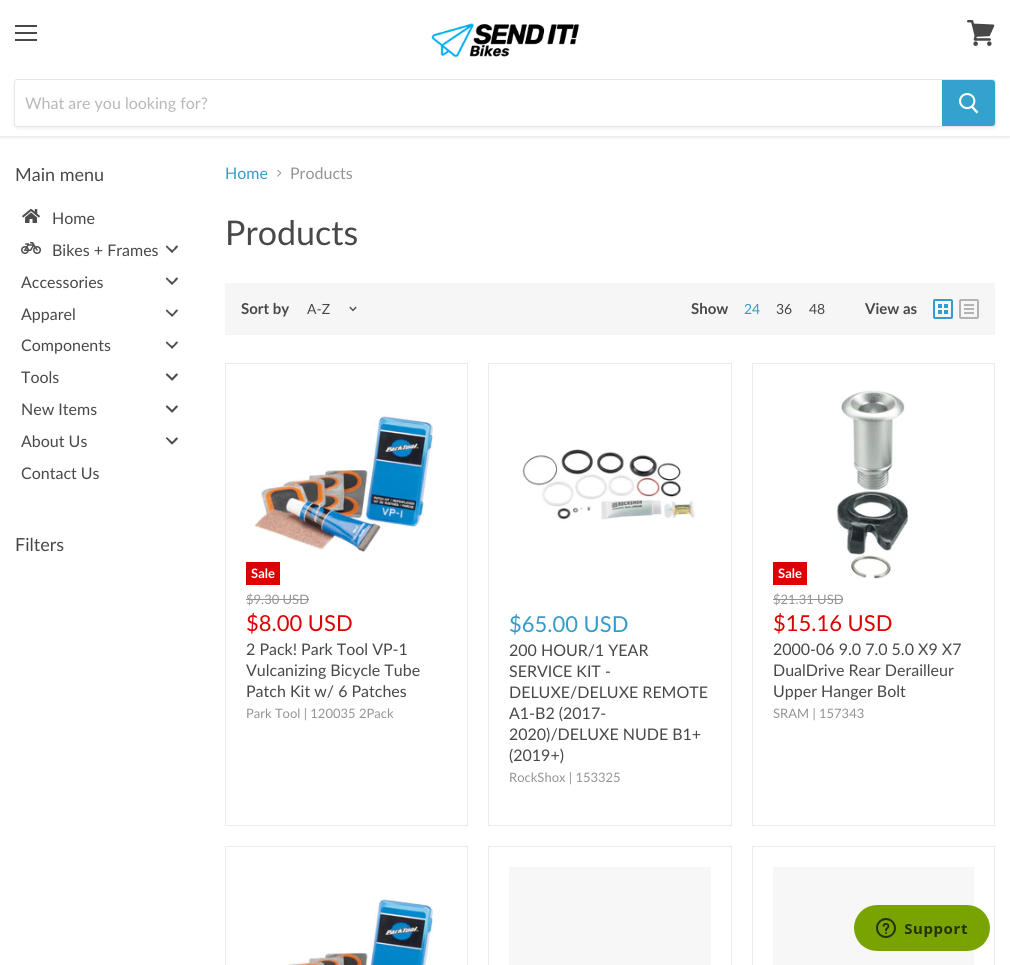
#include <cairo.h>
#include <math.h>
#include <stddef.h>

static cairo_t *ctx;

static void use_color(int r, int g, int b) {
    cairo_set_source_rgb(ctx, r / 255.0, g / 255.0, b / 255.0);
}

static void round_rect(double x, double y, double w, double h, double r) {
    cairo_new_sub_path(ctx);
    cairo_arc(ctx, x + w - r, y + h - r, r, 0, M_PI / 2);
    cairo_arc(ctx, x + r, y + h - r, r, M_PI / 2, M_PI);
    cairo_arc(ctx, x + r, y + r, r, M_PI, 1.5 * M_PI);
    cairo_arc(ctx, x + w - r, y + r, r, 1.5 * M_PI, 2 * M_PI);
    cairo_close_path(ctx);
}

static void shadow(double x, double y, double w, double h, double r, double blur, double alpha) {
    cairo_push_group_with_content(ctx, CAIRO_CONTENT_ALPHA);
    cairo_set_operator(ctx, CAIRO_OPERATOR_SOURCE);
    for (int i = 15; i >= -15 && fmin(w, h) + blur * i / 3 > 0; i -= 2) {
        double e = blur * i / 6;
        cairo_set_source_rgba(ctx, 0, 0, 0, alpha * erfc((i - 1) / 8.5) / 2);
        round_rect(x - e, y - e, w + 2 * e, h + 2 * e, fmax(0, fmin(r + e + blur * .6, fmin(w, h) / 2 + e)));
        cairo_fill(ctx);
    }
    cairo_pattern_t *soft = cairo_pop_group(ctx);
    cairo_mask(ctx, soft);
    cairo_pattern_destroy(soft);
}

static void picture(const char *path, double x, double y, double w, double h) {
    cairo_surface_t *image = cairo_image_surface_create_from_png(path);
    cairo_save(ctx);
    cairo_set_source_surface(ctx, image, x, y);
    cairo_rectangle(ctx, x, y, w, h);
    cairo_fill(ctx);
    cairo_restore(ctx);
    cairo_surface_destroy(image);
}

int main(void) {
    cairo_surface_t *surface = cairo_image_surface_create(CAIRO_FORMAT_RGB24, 1010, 965);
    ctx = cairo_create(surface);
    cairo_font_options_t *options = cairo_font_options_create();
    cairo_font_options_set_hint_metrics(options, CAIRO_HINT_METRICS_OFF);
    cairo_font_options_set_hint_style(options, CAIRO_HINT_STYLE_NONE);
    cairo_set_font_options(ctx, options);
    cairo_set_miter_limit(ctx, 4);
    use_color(255, 255, 255);
    cairo_paint(ctx);
    cairo_save(ctx);
    cairo_rectangle(ctx, 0, 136, 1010, 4);
    cairo_clip(ctx);
    use_color(127, 127, 127);
    shadow(0, 1, 1010, 136, 0, 2, 0.25);
    cairo_restore(ctx);
    use_color(72, 72, 72);
    cairo_rectangle(ctx, 15, 25, 22, 2);
    cairo_fill(ctx);
    cairo_rectangle(ctx, 15, 32, 22, 2);
    cairo_fill(ctx);
    cairo_rectangle(ctx, 15, 39, 22, 2);
    cairo_fill(ctx);
    picture("img1.png", 967, 20, 28, 26);
    picture("img2.png", 431, 23, 149, 35);
    cairo_save(ctx);
    cairo_set_fill_rule(ctx, CAIRO_FILL_RULE_EVEN_ODD);
    cairo_new_path(ctx);
    cairo_move_to(ctx, 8, 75);
    cairo_line_to(ctx, 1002, 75);
    cairo_line_to(ctx, 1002, 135);
    cairo_line_to(ctx, 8, 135);
    cairo_close_path(ctx);
    cairo_move_to(ctx, 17, 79);
    cairo_line_to(ctx, 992, 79);
    cairo_curve_to(ctx, 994, 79, 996, 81, 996, 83);
    cairo_line_to(ctx, 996, 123);
    cairo_curve_to(ctx, 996, 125, 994, 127, 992, 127);
    cairo_line_to(ctx, 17, 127);
    cairo_curve_to(ctx, 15.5, 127, 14, 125.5, 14, 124);
    cairo_line_to(ctx, 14, 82);
    cairo_curve_to(ctx, 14, 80.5, 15.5, 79, 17, 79);
    cairo_close_path(ctx);
    cairo_clip(ctx);
    use_color(127, 127, 127);
    shadow(14, 81, 982, 48, 4, 1.5, 0.11);
    cairo_restore(ctx);
    cairo_new_path(ctx);
    cairo_move_to(ctx, 17, 79.5);
    cairo_line_to(ctx, 992, 79.5);
    cairo_curve_to(ctx, 994, 79.5, 995.5, 81, 995.5, 83);
    cairo_line_to(ctx, 995.5, 123);
    cairo_curve_to(ctx, 995.5, 125, 994, 126.5, 992, 126.5);
    cairo_line_to(ctx, 17, 126.5);
    cairo_curve_to(ctx, 15.5, 126.5, 14.5, 125.5, 14.5, 124);
    cairo_line_to(ctx, 14.5, 82);
    cairo_curve_to(ctx, 14.5, 80.5, 15.5, 79.5, 17, 79.5);
    cairo_close_path(ctx);
    cairo_set_source_rgba(ctx, 0.498, 0.498, 0.498, 0.2);
    cairo_set_line_width(ctx, 1);
    cairo_stroke(ctx);
    cairo_select_font_face(ctx, "Lato", CAIRO_FONT_SLANT_NORMAL, CAIRO_FONT_WEIGHT_NORMAL);
    cairo_set_font_size(ctx, 16);
    use_color(184, 184, 184);
    cairo_move_to(ctx, 25, 109);
    cairo_show_text(ctx, "What are you looking for?");
    use_color(51, 162, 204);
    cairo_new_path(ctx);
    cairo_move_to(ctx, 942.5, 80.5);
    cairo_line_to(ctx, 992, 80.5);
    cairo_curve_to(ctx, 993.5, 80.5, 994.5, 81.5, 994.5, 83);
    cairo_line_to(ctx, 994.5, 123);
    cairo_curve_to(ctx, 994.5, 124.5, 993.5, 125.5, 992, 125.5);
    cairo_line_to(ctx, 942.5, 125.5);
    cairo_close_path(ctx);
    cairo_fill_preserve(ctx);
    cairo_stroke(ctx);
    picture("img3.png", 959, 93, 20, 21);
    cairo_set_font_size(ctx, 18);
    use_color(72, 72, 72);
    cairo_move_to(ctx, 15, 181);
    cairo_show_text(ctx, "Main menu");
    picture("img4.png", 22, 209, 18, 14);
    cairo_set_font_size(ctx, 16);
    cairo_move_to(ctx, 52, 224);
    cairo_show_text(ctx, "Home");
    picture("img5.png", 21, 242, 20, 12);
    cairo_move_to(ctx, 52, 256);
    cairo_show_text(ctx, "Bikes + Frames");
    use_color(77, 77, 77);
    cairo_new_path(ctx);
    cairo_move_to(ctx, 167.5, 246);
    cairo_line_to(ctx, 170, 248.5);
    cairo_curve_to(ctx, 171, 249, 173, 250.5, 173, 252);
    cairo_curve_to(ctx, 172.5, 254.5, 168.5, 249.5, 168, 249);
    cairo_line_to(ctx, 166, 247);
    cairo_curve_to(ctx, 165.5, 246, 167, 245, 167.5, 246);
    cairo_close_path(ctx);
    cairo_fill(ctx);
    cairo_new_path(ctx);
    cairo_move_to(ctx, 171.5, 251);
    cairo_line_to(ctx, 174, 248.5);
    cairo_curve_to(ctx, 174.5, 247.5, 176, 245.5, 177, 245.5);
    cairo_curve_to(ctx, 180, 246, 174.5, 250.5, 174.5, 250.5);
    cairo_line_to(ctx, 172.5, 252.5);
    cairo_curve_to(ctx, 171.5, 253, 170.5, 251.5, 171.5, 251);
    cairo_close_path(ctx);
    cairo_fill(ctx);
    use_color(72, 72, 72);
    cairo_move_to(ctx, 21, 288);
    cairo_show_text(ctx, "Accessories");
    use_color(77, 77, 77);
    cairo_new_path(ctx);
    cairo_move_to(ctx, 167.5, 278);
    cairo_line_to(ctx, 170, 280.5);
    cairo_curve_to(ctx, 171, 281, 173, 282.5, 173, 283.5);
    cairo_curve_to(ctx, 172.5, 286.5, 168.5, 281.5, 168, 281);
    cairo_line_to(ctx, 166, 279);
    cairo_curve_to(ctx, 165.5, 278, 167, 277, 167.5, 278);
    cairo_close_path(ctx);
    cairo_fill(ctx);
    cairo_new_path(ctx);
    cairo_move_to(ctx, 171.5, 283);
    cairo_line_to(ctx, 174, 280.5);
    cairo_curve_to(ctx, 174.5, 279.5, 176, 277.5, 177, 277.5);
    cairo_curve_to(ctx, 180, 278, 174.5, 282.5, 174.5, 282.5);
    cairo_line_to(ctx, 172.5, 284.5);
    cairo_curve_to(ctx, 171.5, 285, 170.5, 283.5, 171.5, 283);
    cairo_close_path(ctx);
    cairo_fill(ctx);
    use_color(72, 72, 72);
    cairo_move_to(ctx, 21, 320);
    cairo_show_text(ctx, "Apparel");
    use_color(77, 77, 77);
    cairo_new_path(ctx);
    cairo_move_to(ctx, 167.5, 310);
    cairo_line_to(ctx, 170, 312.5);
    cairo_curve_to(ctx, 171, 313, 173, 314.5, 173, 315.5);
    cairo_curve_to(ctx, 172.5, 318.5, 168.5, 313, 168, 313);
    cairo_line_to(ctx, 166, 311);
    cairo_curve_to(ctx, 165.5, 310, 167, 309, 167.5, 310);
    cairo_close_path(ctx);
    cairo_fill(ctx);
    cairo_new_path(ctx);
    cairo_move_to(ctx, 171.5, 315);
    cairo_line_to(ctx, 174, 312.5);
    cairo_curve_to(ctx, 174.5, 311.5, 176, 309.5, 177, 309.5);
    cairo_curve_to(ctx, 180, 310, 174.5, 314, 174.5, 314.5);
    cairo_line_to(ctx, 172.5, 316.5);
    cairo_curve_to(ctx, 171.5, 317, 170.5, 315.5, 171.5, 315);
    cairo_close_path(ctx);
    cairo_fill(ctx);
    use_color(72, 72, 72);
    cairo_move_to(ctx, 21, 351);
    cairo_show_text(ctx, "Components");
    use_color(77, 77, 77);
    cairo_new_path(ctx);
    cairo_move_to(ctx, 167.5, 342);
    cairo_line_to(ctx, 170, 344.5);
    cairo_curve_to(ctx, 171, 345, 173, 346.5, 173, 347.5);
    cairo_curve_to(ctx, 172.5, 350.5, 168.5, 345, 168, 345);
    cairo_line_to(ctx, 166, 343);
    cairo_curve_to(ctx, 165.5, 342, 167, 341, 167.5, 342);
    cairo_close_path(ctx);
    cairo_fill(ctx);
    cairo_new_path(ctx);
    cairo_move_to(ctx, 171.5, 346.5);
    cairo_line_to(ctx, 174, 344.5);
    cairo_curve_to(ctx, 174.5, 343.5, 176, 341.5, 177, 341.5);
    cairo_curve_to(ctx, 180, 342, 174.5, 346, 174.5, 346.5);
    cairo_line_to(ctx, 172.5, 348.5);
    cairo_curve_to(ctx, 171.5, 349, 170.5, 347.5, 171.5, 346.5);
    cairo_close_path(ctx);
    cairo_fill(ctx);
    use_color(72, 72, 72);
    cairo_move_to(ctx, 21, 383);
    cairo_show_text(ctx, "Tools");
    use_color(77, 77, 77);
    cairo_new_path(ctx);
    cairo_move_to(ctx, 167.5, 373.5);
    cairo_line_to(ctx, 170, 376);
    cairo_curve_to(ctx, 171, 377, 173, 378.5, 173, 379.5);
    cairo_curve_to(ctx, 172.5, 382.5, 168.5, 377, 168, 377);
    cairo_line_to(ctx, 166, 375);
    cairo_curve_to(ctx, 165.5, 374, 167, 373, 167.5, 373.5);
    cairo_close_path(ctx);
    cairo_fill(ctx);
    cairo_new_path(ctx);
    cairo_move_to(ctx, 171.5, 378.5);
    cairo_line_to(ctx, 174, 376);
    cairo_curve_to(ctx, 174.5, 375.5, 176, 373, 177, 373.5);
    cairo_curve_to(ctx, 180, 374, 174.5, 378, 174.5, 378.5);
    cairo_line_to(ctx, 172.5, 380.5);
    cairo_curve_to(ctx, 171.5, 380.5, 170.5, 379.5, 171.5, 378.5);
    cairo_close_path(ctx);
    cairo_fill(ctx);
    use_color(72, 72, 72);
    cairo_move_to(ctx, 21, 415);
    cairo_show_text(ctx, "New Items");
    use_color(77, 77, 77);
    cairo_new_path(ctx);
    cairo_move_to(ctx, 167.5, 405.5);
    cairo_line_to(ctx, 170, 408);
    cairo_curve_to(ctx, 171, 409, 173, 410.5, 173, 411.5);
    cairo_curve_to(ctx, 172.5, 414.5, 168.5, 409, 168, 409);
    cairo_line_to(ctx, 166, 407);
    cairo_curve_to(ctx, 165.5, 406, 167, 405, 167.5, 405.5);
    cairo_close_path(ctx);
    cairo_fill(ctx);
    cairo_new_path(ctx);
    cairo_move_to(ctx, 171.5, 410.5);
    cairo_line_to(ctx, 174, 408);
    cairo_curve_to(ctx, 174.5, 407.5, 176, 405, 177, 405.5);
    cairo_curve_to(ctx, 180, 406, 174.5, 410, 174.5, 410.5);
    cairo_line_to(ctx, 172.5, 412.5);
    cairo_curve_to(ctx, 171.5, 412.5, 170.5, 411.5, 171.5, 410.5);
    cairo_close_path(ctx);
    cairo_fill(ctx);
    use_color(72, 72, 72);
    cairo_move_to(ctx, 21, 447);
    cairo_show_text(ctx, "About Us");
    use_color(77, 77, 77);
    cairo_new_path(ctx);
    cairo_move_to(ctx, 167.5, 437.5);
    cairo_line_to(ctx, 170, 440);
    cairo_curve_to(ctx, 171, 441, 173, 442, 173, 443.5);
    cairo_curve_to(ctx, 172.5, 446.5, 168.5, 441, 168, 440.5);
    cairo_line_to(ctx, 166, 438.5);
    cairo_curve_to(ctx, 165.5, 437.5, 167, 437, 167.5, 437.5);
    cairo_close_path(ctx);
    cairo_fill(ctx);
    cairo_new_path(ctx);
    cairo_move_to(ctx, 171.5, 442.5);
    cairo_line_to(ctx, 174, 440);
    cairo_curve_to(ctx, 174.5, 439.5, 176, 437, 177, 437.5);
    cairo_curve_to(ctx, 180, 438, 174.5, 442, 174.5, 442.5);
    cairo_line_to(ctx, 172.5, 444);
    cairo_curve_to(ctx, 171.5, 444.5, 170.5, 443.5, 171.5, 442.5);
    cairo_close_path(ctx);
    cairo_fill(ctx);
    use_color(72, 72, 72);
    cairo_move_to(ctx, 21, 479);
    cairo_show_text(ctx, "Contact Us");
    cairo_set_font_size(ctx, 18);
    cairo_move_to(ctx, 15, 551);
    cairo_show_text(ctx, "Filters");
    cairo_set_font_size(ctx, 16);
    use_color(51, 156, 204);
    cairo_move_to(ctx, 225, 179);
    cairo_show_text(ctx, "Home");
    picture("img6.png", 277, 169, 5, 8);
    use_color(148, 148, 148);
    cairo_move_to(ctx, 290, 179);
    cairo_show_text(ctx, "Products");
    cairo_set_font_size(ctx, 34);
    use_color(72, 72, 72);
    cairo_move_to(ctx, 225, 245);
    cairo_show_text(ctx, "Products");
    use_color(246, 246, 246);
    cairo_rectangle(ctx, 225, 283, 770, 52);
    cairo_fill(ctx);
    cairo_select_font_face(ctx, "Lato", CAIRO_FONT_SLANT_NORMAL, CAIRO_FONT_WEIGHT_BOLD);
    cairo_set_font_size(ctx, 15);
    use_color(72, 72, 72);
    cairo_move_to(ctx, 241, 314);
    cairo_show_text(ctx, "Sort by");
    cairo_select_font_face(ctx, "Lato", CAIRO_FONT_SLANT_NORMAL, CAIRO_FONT_WEIGHT_NORMAL);
    cairo_set_font_size(ctx, 14);
    cairo_move_to(ctx, 307, 314);
    cairo_show_text(ctx, "A-Z");
    picture("img7.png", 349, 306, 8, 6);
    cairo_select_font_face(ctx, "Lato", CAIRO_FONT_SLANT_NORMAL, CAIRO_FONT_WEIGHT_BOLD);
    cairo_set_font_size(ctx, 15);
    cairo_move_to(ctx, 691, 314);
    cairo_show_text(ctx, "Show");
    cairo_select_font_face(ctx, "Lato", CAIRO_FONT_SLANT_NORMAL, CAIRO_FONT_WEIGHT_NORMAL);
    cairo_set_font_size(ctx, 14);
    use_color(51, 156, 204);
    cairo_move_to(ctx, 744, 314);
    cairo_show_text(ctx, "24");
    use_color(72, 72, 72);
    cairo_move_to(ctx, 776, 314);
    cairo_show_text(ctx, "36");
    cairo_move_to(ctx, 809, 314);
    cairo_show_text(ctx, "48");
    cairo_select_font_face(ctx, "Lato", CAIRO_FONT_SLANT_NORMAL, CAIRO_FONT_WEIGHT_BOLD);
    cairo_set_font_size(ctx, 15);
    cairo_move_to(ctx, 865, 314);
    cairo_show_text(ctx, "View as");
    picture("img8.png", 933, 299, 20, 20);
    picture("img9.png", 959, 299, 20, 20);
    cairo_rectangle(ctx, 225.5, 363.5, 242, 462);
    use_color(235, 235, 235);
    cairo_stroke(ctx);
    picture("img10.png", 254, 412, 180, 140);
    use_color(222, 1, 1);
    cairo_rectangle(ctx, 246, 562, 34, 23);
    cairo_fill(ctx);
    cairo_set_font_size(ctx, 13);
    use_color(255, 255, 255);
    cairo_move_to(ctx, 251, 578);
    cairo_show_text(ctx, "Sale");
    cairo_select_font_face(ctx, "Lato", CAIRO_FONT_SLANT_NORMAL, CAIRO_FONT_WEIGHT_NORMAL);
    use_color(148, 148, 148);
    cairo_move_to(ctx, 246, 604);
    cairo_show_text(ctx, "$9.30 USD");
    cairo_rectangle(ctx, 246, 599, 63, 1);
    cairo_fill(ctx);
    cairo_set_font_size(ctx, 22);
    use_color(222, 1, 1);
    cairo_move_to(ctx, 246, 631);
    cairo_show_text(ctx, "$8.00 USD");
    cairo_set_font_size(ctx, 16);
    use_color(72, 72, 72);
    cairo_move_to(ctx, 246, 655);
    cairo_show_text(ctx, "2 Pack! Park Tool VP-1");
    cairo_move_to(ctx, 246, 676);
    cairo_show_text(ctx, "Vulcanizing Bicycle Tube");
    cairo_move_to(ctx, 246, 697);
    cairo_show_text(ctx, "Patch Kit w/ 6 Patches");
    cairo_set_font_size(ctx, 13);
    use_color(148, 148, 148);
    cairo_move_to(ctx, 246, 718);
    cairo_show_text(ctx, "Park Tool | 120035 2Pack");
    cairo_rectangle(ctx, 488.5, 363.5, 243, 462);
    use_color(235, 235, 235);
    cairo_stroke(ctx);
    picture("img11.png", 522, 449, 174, 72);
    cairo_set_font_size(ctx, 22);
    use_color(51, 156, 204);
    cairo_move_to(ctx, 509, 632);
    cairo_show_text(ctx, "$65.00 USD");
    cairo_set_font_size(ctx, 16);
    use_color(72, 72, 72);
    cairo_move_to(ctx, 509, 656);
    cairo_show_text(ctx, "200 HOUR/1 YEAR");
    cairo_move_to(ctx, 509, 677);
    cairo_show_text(ctx, "SERVICE KIT -");
    cairo_move_to(ctx, 509, 698);
    cairo_show_text(ctx, "DELUXE/DELUXE REMOTE");
    cairo_move_to(ctx, 509, 719);
    cairo_show_text(ctx, "A1-B2 (2017-");
    cairo_move_to(ctx, 509, 740);
    cairo_show_text(ctx, "2020)/DELUXE NUDE B1+");
    cairo_move_to(ctx, 509, 761);
    cairo_show_text(ctx, "(2019+)");
    cairo_set_font_size(ctx, 13);
    use_color(148, 148, 148);
    cairo_move_to(ctx, 509, 782);
    cairo_show_text(ctx, "RockShox | 153325");
    cairo_rectangle(ctx, 752.5, 363.5, 242, 462);
    use_color(235, 235, 235);
    cairo_stroke(ctx);
    use_color(222, 1, 1);
    cairo_rectangle(ctx, 773, 562, 34, 23);
    cairo_fill(ctx);
    cairo_select_font_face(ctx, "Lato", CAIRO_FONT_SLANT_NORMAL, CAIRO_FONT_WEIGHT_BOLD);
    use_color(255, 255, 255);
    cairo_move_to(ctx, 778, 578);
    cairo_show_text(ctx, "Sale");
    picture("img12.png", 836, 390, 72, 189);
    cairo_select_font_face(ctx, "Lato", CAIRO_FONT_SLANT_NORMAL, CAIRO_FONT_WEIGHT_NORMAL);
    use_color(148, 148, 148);
    cairo_move_to(ctx, 773, 604);
    cairo_show_text(ctx, "$21.31 USD");
    cairo_rectangle(ctx, 773, 599, 70, 1);
    cairo_fill(ctx);
    cairo_set_font_size(ctx, 22);
    use_color(222, 1, 1);
    cairo_move_to(ctx, 773, 631);
    cairo_show_text(ctx, "$15.16 USD");
    cairo_set_font_size(ctx, 16);
    use_color(72, 72, 72);
    cairo_move_to(ctx, 773, 655);
    cairo_show_text(ctx, "2000-06 9.0 7.0 5.0 X9 X7");
    cairo_move_to(ctx, 773, 676);
    cairo_show_text(ctx, "DualDrive Rear Derailleur");
    cairo_move_to(ctx, 773, 697);
    cairo_show_text(ctx, "Upper Hanger Bolt");
    cairo_set_font_size(ctx, 13);
    use_color(148, 148, 148);
    cairo_move_to(ctx, 773, 718);
    cairo_show_text(ctx, "SRAM | 157343");
    cairo_rectangle(ctx, 225.5, 846.5, 242, 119);
    use_color(235, 235, 235);
    cairo_stroke(ctx);
    picture("img13.png", 288, 895, 146, 70);
    cairo_rectangle(ctx, 488.5, 846.5, 243, 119);
    cairo_stroke(ctx);
    use_color(247, 247, 247);
    cairo_rectangle(ctx, 509, 867, 202, 98);
    cairo_fill(ctx);
    cairo_rectangle(ctx, 752.5, 846.5, 242, 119);
    use_color(235, 235, 235);
    cairo_stroke(ctx);
    use_color(247, 247, 247);
    cairo_rectangle(ctx, 773, 867, 201, 98);
    cairo_fill(ctx);
    picture("img14.png", 854, 905, 136, 46);
    cairo_surface_write_to_png(surface, "result.png");
    cairo_font_options_destroy(options);
    cairo_destroy(ctx);
    cairo_surface_destroy(surface);
    return 0;
}
